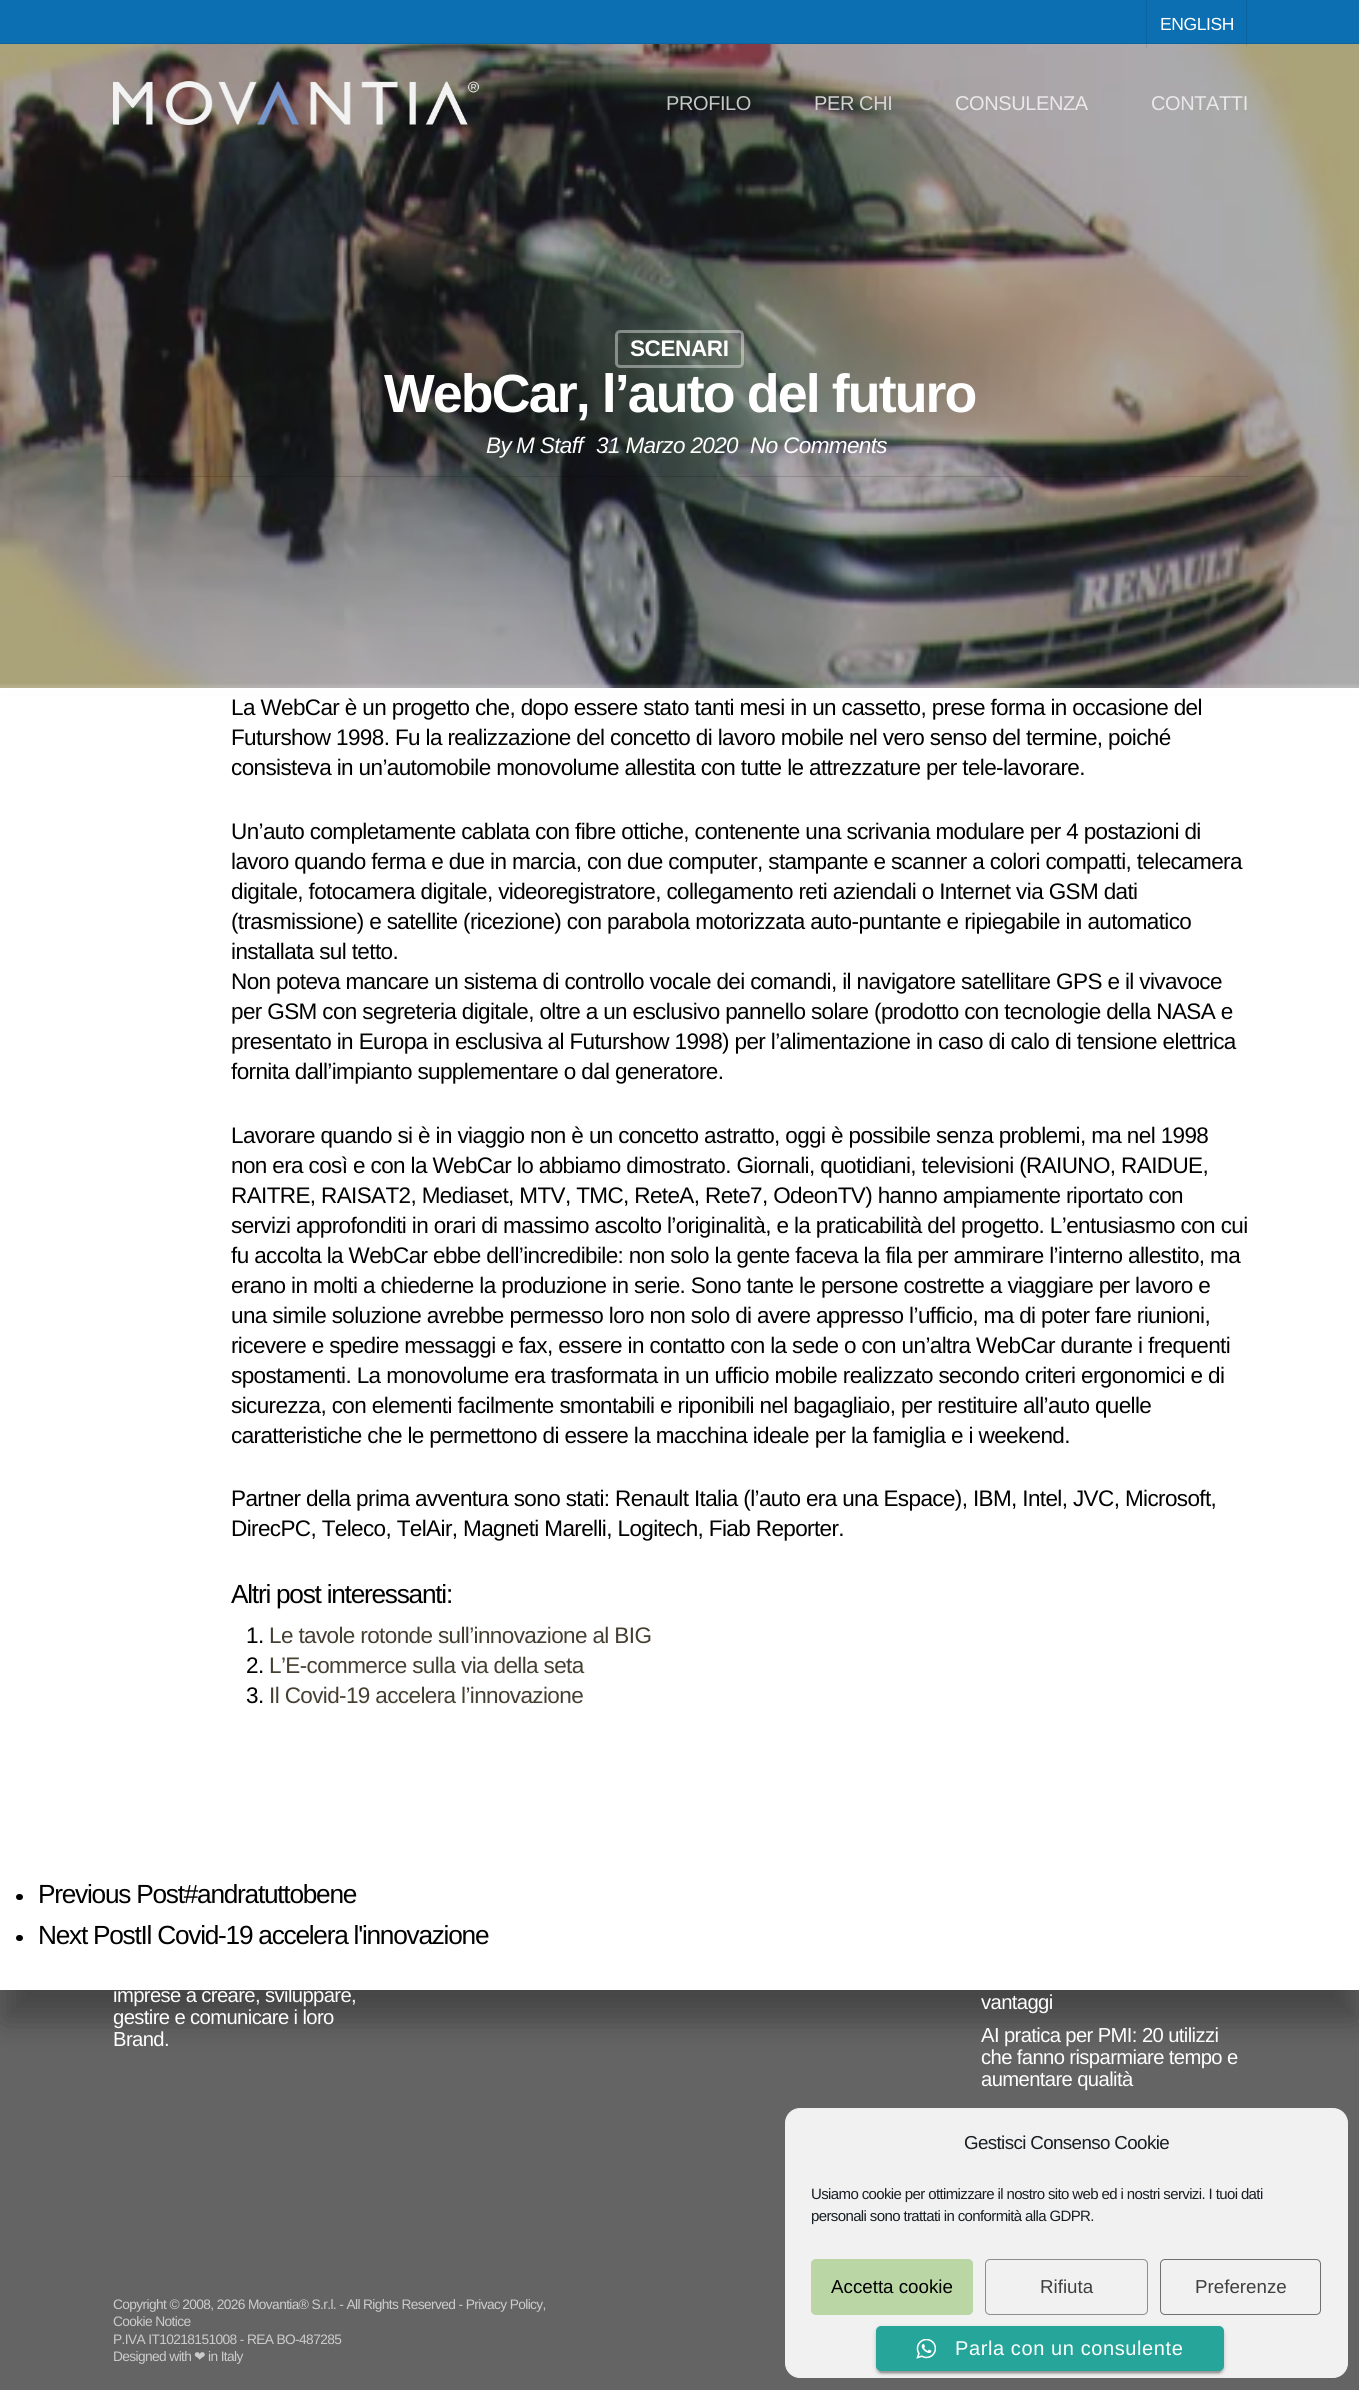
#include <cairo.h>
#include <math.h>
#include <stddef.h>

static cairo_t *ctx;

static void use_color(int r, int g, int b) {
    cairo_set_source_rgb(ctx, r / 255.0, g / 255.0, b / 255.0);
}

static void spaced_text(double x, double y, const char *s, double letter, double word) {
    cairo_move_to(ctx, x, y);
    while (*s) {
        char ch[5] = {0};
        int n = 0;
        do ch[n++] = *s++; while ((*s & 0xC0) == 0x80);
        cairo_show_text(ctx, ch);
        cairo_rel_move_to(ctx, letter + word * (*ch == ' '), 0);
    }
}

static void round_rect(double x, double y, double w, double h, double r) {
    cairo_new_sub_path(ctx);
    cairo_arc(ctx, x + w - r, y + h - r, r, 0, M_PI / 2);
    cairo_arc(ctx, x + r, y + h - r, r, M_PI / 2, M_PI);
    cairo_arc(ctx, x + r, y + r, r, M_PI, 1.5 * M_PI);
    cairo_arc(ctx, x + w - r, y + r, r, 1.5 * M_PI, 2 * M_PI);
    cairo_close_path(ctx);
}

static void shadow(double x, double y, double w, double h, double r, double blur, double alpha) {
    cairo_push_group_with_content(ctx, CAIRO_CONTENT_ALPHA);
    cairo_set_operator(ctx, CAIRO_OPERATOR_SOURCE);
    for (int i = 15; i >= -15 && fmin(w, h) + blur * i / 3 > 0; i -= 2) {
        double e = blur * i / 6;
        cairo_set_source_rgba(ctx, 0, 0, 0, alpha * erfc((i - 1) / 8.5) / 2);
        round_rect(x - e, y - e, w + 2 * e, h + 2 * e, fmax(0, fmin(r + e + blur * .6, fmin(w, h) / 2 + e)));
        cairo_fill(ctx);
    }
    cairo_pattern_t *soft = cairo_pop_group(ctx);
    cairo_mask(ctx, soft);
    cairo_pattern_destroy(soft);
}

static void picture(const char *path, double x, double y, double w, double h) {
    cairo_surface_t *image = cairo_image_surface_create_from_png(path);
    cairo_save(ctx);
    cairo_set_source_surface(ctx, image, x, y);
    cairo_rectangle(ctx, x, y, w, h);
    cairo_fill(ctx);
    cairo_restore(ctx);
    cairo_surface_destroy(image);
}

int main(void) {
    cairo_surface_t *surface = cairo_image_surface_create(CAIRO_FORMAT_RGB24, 1359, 2390);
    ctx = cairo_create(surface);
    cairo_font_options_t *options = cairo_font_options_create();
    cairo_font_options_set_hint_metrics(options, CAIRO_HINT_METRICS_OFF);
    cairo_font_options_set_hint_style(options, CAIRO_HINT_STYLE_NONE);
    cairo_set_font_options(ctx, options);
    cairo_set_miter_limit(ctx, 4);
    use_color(255, 255, 255);
    cairo_paint(ctx);
    use_color(12, 111, 178);
    cairo_rectangle(ctx, 0, 0, 1359, 43);
    cairo_fill(ctx);
    use_color(11, 100, 160);
    cairo_rectangle(ctx, 0, 43, 1359, 1);
    cairo_fill(ctx);
    picture("img2.png", 0, 44, 1359, 644);
    cairo_set_source_rgba(ctx, 0, 0, 0, 0.1);
    cairo_rectangle(ctx, 1246, 0, 1, 46);
    cairo_fill(ctx);
    cairo_rectangle(ctx, 1146, 0, 1, 48);
    cairo_fill(ctx);
    cairo_select_font_face(ctx, "Liberation Sans", CAIRO_FONT_SLANT_NORMAL, CAIRO_FONT_WEIGHT_NORMAL);
    cairo_set_font_size(ctx, 17.5);
    use_color(255, 255, 255);
    spaced_text(1160, 30, "ENGLISH", -0.4, 0);
    picture("img1.png", 113, 81, 366, 44);
    cairo_set_font_size(ctx, 20);
    use_color(197, 198, 198);
    spaced_text(666, 110, "PROFILO", -0.4, 0);
    use_color(212, 212, 210);
    spaced_text(814, 110, "PER CHI", -0.4, 0);
    use_color(234, 232, 233);
    spaced_text(955, 110, "CONSULENZA", -0.4, 0);
    spaced_text(1151, 110, "CONTATTI", -0.4, 0);
    cairo_set_source_rgba(ctx, 0, 0, 0, 0.15);
    cairo_rectangle(ctx, 113, 476, 1135, 1);
    cairo_fill(ctx);
    round_rect(616.5, 331.5, 126, 35, 3.5);
    cairo_set_source_rgba(ctx, 1, 1, 1, 0.4);
    cairo_set_line_width(ctx, 3);
    cairo_stroke(ctx);
    cairo_select_font_face(ctx, "Liberation Sans", CAIRO_FONT_SLANT_NORMAL, CAIRO_FONT_WEIGHT_BOLD);
    cairo_set_font_size(ctx, 22.5);
    use_color(255, 255, 255);
    spaced_text(630, 356, "SCENARI", -0.4, 0);
    cairo_set_font_size(ctx, 53.75);
    spaced_text(384, 412, "WebCar, l’auto del futuro", -1.9, 0);
    cairo_select_font_face(ctx, "Liberation Sans", CAIRO_FONT_SLANT_ITALIC, CAIRO_FONT_WEIGHT_NORMAL);
    cairo_set_font_size(ctx, 22.5);
    spaced_text(486, 453, "By", -0.62, 0);
    spaced_text(516, 453, "M Staff", -0.62, 0);
    spaced_text(596, 453, "31 Marzo 2020", -0.62, 0);
    spaced_text(750, 453, "No Comments", -0.62, 0);
    use_color(100, 100, 100);
    cairo_rectangle(ctx, 0, 1990, 1359, 400);
    cairo_fill(ctx);
    use_color(0, 0, 0);
    shadow(3, 724, 1355, 1297, 0, 15.5, 0.3);
    use_color(255, 255, 255);
    cairo_rectangle(ctx, 0, 696, 1359, 1294);
    cairo_fill(ctx);
    cairo_select_font_face(ctx, "Liberation Sans", CAIRO_FONT_SLANT_NORMAL, CAIRO_FONT_WEIGHT_NORMAL);
    use_color(0, 0, 0);
    spaced_text(231, 715, "La WebCar è un progetto che, dopo essere stato tanti mesi in un cassetto, prese forma in occasione del", -0.62, 0);
    spaced_text(231, 745, "Futurshow 1998. Fu la realizzazione del concetto di lavoro mobile nel vero senso del termine, poiché", -0.62, 0);
    spaced_text(231, 775, "consisteva in un’automobile monovolume allestita con tutte le attrezzature per tele-lavorare.", -0.62, 0);
    spaced_text(231, 839, "Un’auto completamente cablata con fibre ottiche, contenente una scrivania modulare per 4 postazioni di", -0.62, 0);
    spaced_text(231, 869, "lavoro quando ferma e due in marcia, con due computer, stampante e scanner a colori compatti, telecamera", -0.62, 0);
    spaced_text(231, 899, "digitale, fotocamera digitale, videoregistratore, collegamento reti aziendali o Internet via GSM dati", -0.62, 0);
    spaced_text(231, 929, "(trasmissione) e satellite (ricezione) con parabola motorizzata auto-puntante e ripiegabile in automatico", -0.62, 0);
    spaced_text(231, 959, "installata sul tetto.", -0.62, 0);
    spaced_text(231, 989, "Non poteva mancare un sistema di controllo vocale dei comandi, il navigatore satellitare GPS e il vivavoce", -0.62, 0);
    spaced_text(231, 1019, "per GSM con segreteria digitale, oltre a un esclusivo pannello solare (prodotto con tecnologie della NASA e", -0.62, 0);
    spaced_text(231, 1049, "presentato in Europa in esclusiva al Futurshow 1998) per l’alimentazione in caso di calo di tensione elettrica", -0.62, 0);
    spaced_text(231, 1079, "fornita dall’impianto supplementare o dal generatore.", -0.62, 0);
    spaced_text(231, 1143, "Lavorare quando si è in viaggio non è un concetto astratto, oggi è possibile senza problemi, ma nel 1998", -0.62, 0);
    spaced_text(231, 1173, "non era così e con la WebCar lo abbiamo dimostrato. Giornali, quotidiani, televisioni (RAIUNO, RAIDUE,", -0.62, 0);
    spaced_text(231, 1203, "RAITRE, RAISAT2, Mediaset, MTV, TMC, ReteA, Rete7, OdeonTV) hanno ampiamente riportato con", -0.62, 0);
    spaced_text(231, 1233, "servizi approfonditi in orari di massimo ascolto l’originalità, e la praticabilità del progetto. L’entusiasmo con cui", -0.62, 0);
    spaced_text(231, 1263, "fu accolta la WebCar ebbe dell’incredibile: non solo la gente faceva la fila per ammirare l’interno allestito, ma", -0.62, 0);
    spaced_text(231, 1293, "erano in molti a chiederne la produzione in serie. Sono tante le persone costrette a viaggiare per lavoro e", -0.62, 0);
    spaced_text(231, 1323, "una simile soluzione avrebbe permesso loro non solo di avere appresso l’ufficio, ma di poter fare riunioni,", -0.62, 0);
    spaced_text(231, 1353, "ricevere e spedire messaggi e fax, essere in contatto con la sede o con un’altra WebCar durante i frequenti", -0.62, 0);
    spaced_text(231, 1383, "spostamenti. La monovolume era trasformata in un ufficio mobile realizzato secondo criteri ergonomici e di", -0.62, 0);
    spaced_text(231, 1413, "sicurezza, con elementi facilmente smontabili e riponibili nel bagagliaio, per restituire all’auto quelle", -0.62, 0);
    spaced_text(231, 1443, "caratteristiche che le permettono di essere la macchina ideale per la famiglia e i weekend.", -0.62, 0);
    spaced_text(231, 1506, "Partner della prima avventura sono stati: Renault Italia (l’auto era una Espace), IBM, Intel, JVC, Microsoft,", -0.62, 0);
    spaced_text(231, 1536, "DirecPC, Teleco, TelAir, Magneti Marelli, Logitech, Fiab Reporter.", -0.62, 0);
    cairo_set_font_size(ctx, 26.25);
    spaced_text(231, 1603, "Altri post interessanti:", -1.25, 0);
    cairo_set_font_size(ctx, 22.5);
    spaced_text(246, 1643, "1.", -0.62, 0);
    use_color(69, 63, 50);
    spaced_text(269, 1643, "Le tavole rotonde sull’innovazione al BIG", -0.62, 0);
    use_color(0, 0, 0);
    spaced_text(246, 1673, "2.", -0.62, 0);
    use_color(69, 63, 50);
    spaced_text(269, 1673, "L’E-commerce sulla via della seta", -0.62, 0);
    use_color(0, 0, 0);
    spaced_text(246, 1703, "3.", -0.62, 0);
    use_color(69, 63, 50);
    spaced_text(269, 1703, "Il Covid-19 accelera l’innovazione", -0.62, 0);
    use_color(0, 0, 0);
    round_rect(16, 1894, 7, 6, 3);
    cairo_fill(ctx);
    cairo_set_font_size(ctx, 26.25);
    spaced_text(38, 1903, "Previous Post#andratuttobene", -1.25, 0);
    round_rect(16, 1935, 7, 6, 3);
    cairo_fill(ctx);
    spaced_text(38, 1944, "Next PostIl Covid-19 accelera l'innovazione", -1.25, 0);
    cairo_set_font_size(ctx, 20.25);
    use_color(255, 255, 255);
    spaced_text(113, 2002, "imprese a creare, sviluppare,", -0.62, 0);
    spaced_text(113, 2024, "gestire e comunicare i loro", -0.62, 0);
    spaced_text(113, 2046, "Brand.", -0.62, 0);
    spaced_text(981, 2009, "vantaggi", -0.62, 0);
    spaced_text(981, 2042, "AI pratica per PMI: 20 utilizzi", -0.62, 0);
    spaced_text(981, 2064, "che fanno risparmiare tempo e", -0.62, 0);
    spaced_text(981, 2086, "aumentare qualità", -0.62, 0);
    cairo_set_font_size(ctx, 13.75);
    use_color(204, 204, 204);
    spaced_text(113, 2309, "Copyright © 2008, 2026 Movantia® S.r.l. - All Rights Reserved - Privacy Policy,", -0.62, 0);
    spaced_text(113, 2326, "Cookie Notice", -0.62, 0);
    spaced_text(113, 2344, "P.IVA IT10218151008 - REA BO-487285", -0.62, 0);
    spaced_text(113, 2361, "Designed with", -0.62, 0);
    cairo_select_font_face(ctx, "DejaVu Sans", CAIRO_FONT_SLANT_NORMAL, CAIRO_FONT_WEIGHT_NORMAL);
    spaced_text(194, 2361, "❤", -0.62, 0);
    cairo_select_font_face(ctx, "Liberation Sans", CAIRO_FONT_SLANT_NORMAL, CAIRO_FONT_WEIGHT_NORMAL);
    spaced_text(208, 2361, "in Italy", -0.62, 0);
    use_color(241, 241, 241);
    round_rect(785.5, 2108.5, 562, 269, 14.5);
    cairo_fill_preserve(ctx);
    cairo_set_line_width(ctx, 1);
    cairo_stroke(ctx);
    cairo_set_font_size(ctx, 18.75);
    use_color(25, 30, 35);
    spaced_text(964, 2149, "Gestisci Consenso Cookie", -0.62, 0);
    cairo_set_font_size(ctx, 15);
    spaced_text(811, 2199, "Usiamo cookie per ottimizzare il nostro sito web ed i nostri servizi. I tuoi dati", -0.62, 0);
    spaced_text(811, 2221, "personali sono trattati in conformità alla GDPR.", -0.62, 0);
    use_color(185, 214, 164);
    round_rect(811.5, 2259.5, 161, 55, 4.5);
    cairo_fill_preserve(ctx);
    cairo_stroke(ctx);
    cairo_set_font_size(ctx, 18.75);
    use_color(0, 0, 0);
    cairo_move_to(ctx, 831, 2293);
    cairo_show_text(ctx, "Accetta cookie");
    round_rect(985.5, 2259.5, 162, 55, 4.5);
    use_color(142, 142, 142);
    cairo_stroke(ctx);
    use_color(63, 63, 63);
    cairo_move_to(ctx, 1040, 2293);
    cairo_show_text(ctx, "Rifiuta");
    round_rect(1160.5, 2259.5, 160, 55, 4.5);
    use_color(112, 112, 112);
    cairo_stroke(ctx);
    use_color(63, 63, 63);
    cairo_move_to(ctx, 1195, 2293);
    cairo_show_text(ctx, "Preferenze");
    use_color(0, 0, 0);
    shadow(879, 2333, 342, 40, 2.5, 0.5, 0.2);
    shadow(876, 2328, 348, 45, 5, 3, 0.12);
    shadow(876, 2329, 348, 45, 5, 1, 0.14);
    use_color(38, 166, 154);
    round_rect(876, 2326, 348, 45, 5);
    cairo_fill(ctx);
    picture("img3.png", 916, 2339, 20, 20);
    cairo_set_font_size(ctx, 20);
    use_color(255, 255, 255);
    spaced_text(955, 2355, "Parla con un consulente", 0.6, 0);
    cairo_surface_write_to_png(surface, "result.png");
    cairo_font_options_destroy(options);
    cairo_destroy(ctx);
    cairo_surface_destroy(surface);
    return 0;
}
